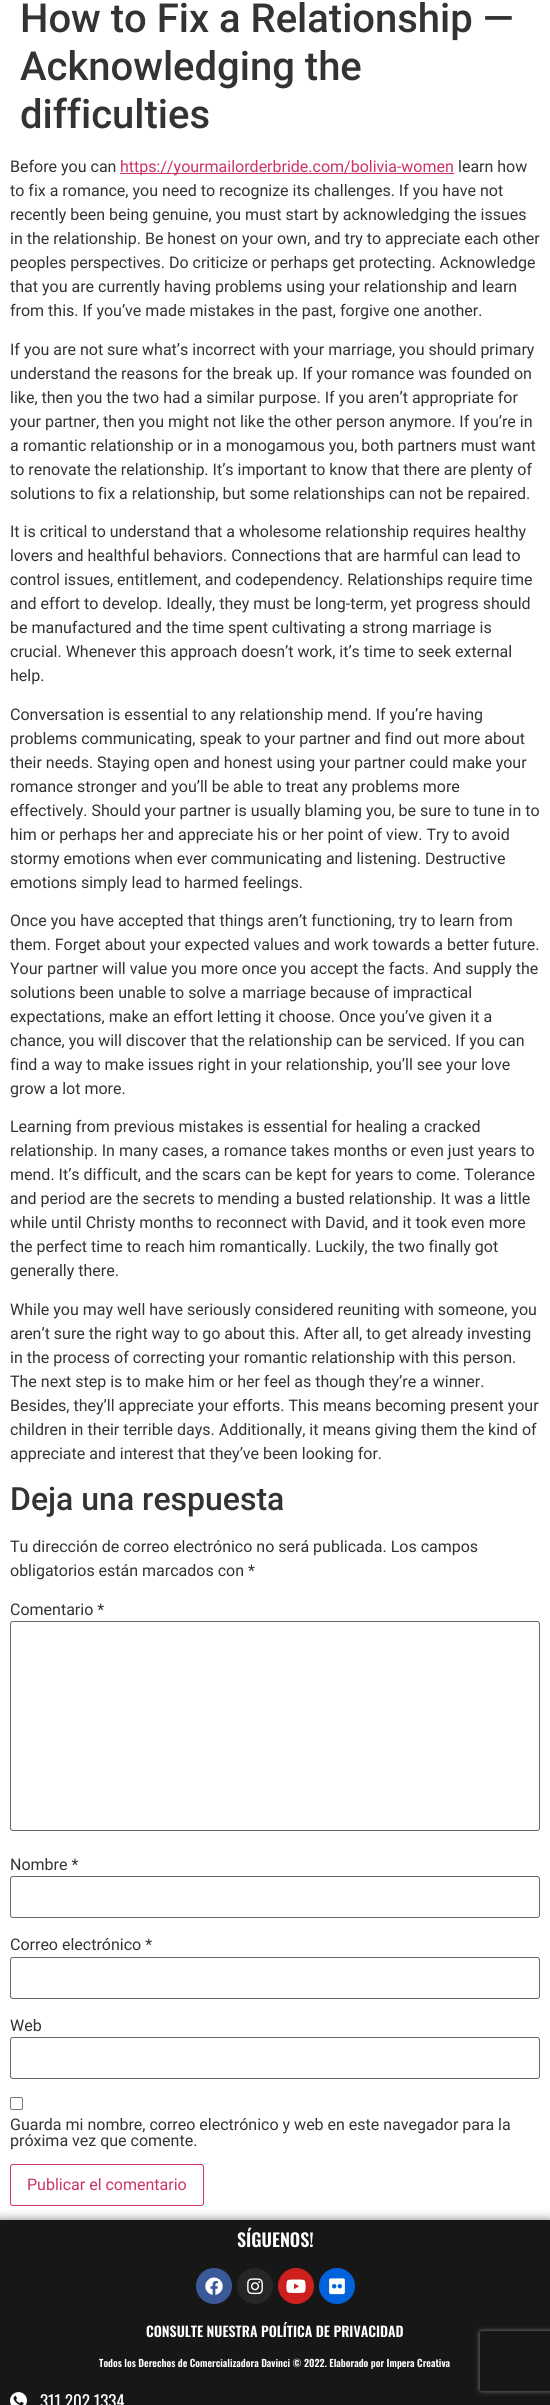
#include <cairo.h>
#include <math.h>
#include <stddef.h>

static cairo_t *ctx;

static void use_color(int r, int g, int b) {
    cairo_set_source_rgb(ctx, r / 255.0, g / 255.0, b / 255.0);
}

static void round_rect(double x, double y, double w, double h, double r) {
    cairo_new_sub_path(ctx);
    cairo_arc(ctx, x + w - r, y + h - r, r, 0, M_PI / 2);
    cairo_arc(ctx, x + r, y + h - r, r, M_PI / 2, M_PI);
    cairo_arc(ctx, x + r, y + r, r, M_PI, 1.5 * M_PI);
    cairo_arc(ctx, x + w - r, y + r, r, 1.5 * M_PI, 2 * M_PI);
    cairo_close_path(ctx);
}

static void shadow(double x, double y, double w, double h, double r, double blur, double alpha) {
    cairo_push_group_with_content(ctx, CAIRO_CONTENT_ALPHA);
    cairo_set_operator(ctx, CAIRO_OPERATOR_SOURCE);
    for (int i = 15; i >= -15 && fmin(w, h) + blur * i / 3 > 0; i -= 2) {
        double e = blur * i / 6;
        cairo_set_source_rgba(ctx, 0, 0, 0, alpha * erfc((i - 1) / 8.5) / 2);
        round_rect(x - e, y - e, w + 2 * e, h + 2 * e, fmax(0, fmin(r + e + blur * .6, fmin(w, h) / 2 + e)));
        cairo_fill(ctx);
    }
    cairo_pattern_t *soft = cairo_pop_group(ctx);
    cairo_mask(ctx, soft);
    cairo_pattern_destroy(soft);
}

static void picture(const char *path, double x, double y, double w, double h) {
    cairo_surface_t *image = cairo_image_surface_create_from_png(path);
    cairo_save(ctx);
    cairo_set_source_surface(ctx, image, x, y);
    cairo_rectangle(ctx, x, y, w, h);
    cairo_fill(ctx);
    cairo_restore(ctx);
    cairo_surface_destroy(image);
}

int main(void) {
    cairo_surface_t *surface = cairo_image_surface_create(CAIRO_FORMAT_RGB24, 550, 2405);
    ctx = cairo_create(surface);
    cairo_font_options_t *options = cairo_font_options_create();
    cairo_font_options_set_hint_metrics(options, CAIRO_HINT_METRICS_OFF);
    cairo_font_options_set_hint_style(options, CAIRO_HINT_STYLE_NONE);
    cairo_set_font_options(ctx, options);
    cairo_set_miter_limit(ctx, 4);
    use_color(255, 255, 255);
    cairo_paint(ctx);
    cairo_select_font_face(ctx, "Roboto Medium", CAIRO_FONT_SLANT_NORMAL, CAIRO_FONT_WEIGHT_NORMAL);
    cairo_set_font_size(ctx, 40);
    use_color(51, 51, 51);
    cairo_move_to(ctx, 20, 32);
    cairo_show_text(ctx, "How to Fix a Relationship —");
    cairo_move_to(ctx, 20, 80);
    cairo_show_text(ctx, "Acknowledging the");
    cairo_move_to(ctx, 20, 128);
    cairo_show_text(ctx, "difficulties");
    cairo_select_font_face(ctx, "Roboto", CAIRO_FONT_SLANT_NORMAL, CAIRO_FONT_WEIGHT_NORMAL);
    cairo_set_font_size(ctx, 16);
    cairo_move_to(ctx, 10, 172);
    cairo_show_text(ctx, "Before you can");
    use_color(204, 51, 102);
    cairo_rectangle(ctx, 120, 173, 334, 1);
    cairo_fill(ctx);
    cairo_move_to(ctx, 120, 172);
    cairo_show_text(ctx, "https://yourmailorderbride.com/bolivia-women");
    use_color(51, 51, 51);
    cairo_move_to(ctx, 458, 172);
    cairo_show_text(ctx, "learn how");
    cairo_move_to(ctx, 10, 196);
    cairo_show_text(ctx, "to fix a romance, you need to recognize its challenges. If you have not");
    cairo_move_to(ctx, 10, 220);
    cairo_show_text(ctx, "recently been being genuine, you must start by acknowledging the issues");
    cairo_move_to(ctx, 10, 244);
    cairo_show_text(ctx, "in the relationship. Be honest on your own, and try to appreciate each other");
    cairo_move_to(ctx, 10, 268);
    cairo_show_text(ctx, "peoples perspectives. Do criticize or perhaps get protecting. Acknowledge");
    cairo_move_to(ctx, 10, 292);
    cairo_show_text(ctx, "that you are currently having problems using your relationship and learn");
    cairo_move_to(ctx, 10, 316);
    cairo_show_text(ctx, "from this. If you’ve made mistakes in the past, forgive one another.");
    cairo_move_to(ctx, 10, 355);
    cairo_show_text(ctx, "If you are not sure what’s incorrect with your marriage, you should primary");
    cairo_move_to(ctx, 10, 379);
    cairo_show_text(ctx, "understand the reasons for the break up. If your romance was founded on");
    cairo_move_to(ctx, 10, 403);
    cairo_show_text(ctx, "like, then you the two had a similar purpose. If you aren’t appropriate for");
    cairo_move_to(ctx, 10, 427);
    cairo_show_text(ctx, "your partner, then you might not like the other person anymore. If you’re in");
    cairo_move_to(ctx, 10, 451);
    cairo_show_text(ctx, "a romantic relationship or in a monogamous you, both partners must want");
    cairo_move_to(ctx, 10, 475);
    cairo_show_text(ctx, "to renovate the relationship. It’s important to know that there are plenty of");
    cairo_move_to(ctx, 10, 499);
    cairo_show_text(ctx, "solutions to fix a relationship, but some relationships can not be repaired.");
    cairo_move_to(ctx, 10, 537);
    cairo_show_text(ctx, "It is critical to understand that a wholesome relationship requires healthy");
    cairo_move_to(ctx, 10, 561);
    cairo_show_text(ctx, "lovers and healthful behaviors. Connections that are harmful can lead to");
    cairo_move_to(ctx, 10, 585);
    cairo_show_text(ctx, "control issues, entitlement, and codependency. Relationships require time");
    cairo_move_to(ctx, 10, 609);
    cairo_show_text(ctx, "and effort to develop. Ideally, they must be long-term, yet progress should");
    cairo_move_to(ctx, 10, 633);
    cairo_show_text(ctx, "be manufactured and the time spent cultivating a strong marriage is");
    cairo_move_to(ctx, 10, 657);
    cairo_show_text(ctx, "crucial. Whenever this approach doesn’t work, it’s time to seek external");
    cairo_move_to(ctx, 10, 681);
    cairo_show_text(ctx, "help.");
    cairo_move_to(ctx, 10, 720);
    cairo_show_text(ctx, "Conversation is essential to any relationship mend. If you’re having");
    cairo_move_to(ctx, 10, 744);
    cairo_show_text(ctx, "problems communicating, speak to your partner and find out more about");
    cairo_move_to(ctx, 10, 768);
    cairo_show_text(ctx, "their needs. Staying open and honest using your partner could make your");
    cairo_move_to(ctx, 10, 792);
    cairo_show_text(ctx, "romance stronger and you’ll be able to treat any problems more");
    cairo_move_to(ctx, 10, 816);
    cairo_show_text(ctx, "effectively. Should your partner is usually blaming you, be sure to tune in to");
    cairo_move_to(ctx, 10, 840);
    cairo_show_text(ctx, "him or perhaps her and appreciate his or her point of view. Try to avoid");
    cairo_move_to(ctx, 10, 864);
    cairo_show_text(ctx, "stormy emotions when ever communicating and listening. Destructive");
    cairo_move_to(ctx, 10, 888);
    cairo_show_text(ctx, "emotions simply lead to harmed feelings.");
    cairo_move_to(ctx, 10, 926);
    cairo_show_text(ctx, "Once you have accepted that things aren’t functioning, try to learn from");
    cairo_move_to(ctx, 10, 950);
    cairo_show_text(ctx, "them. Forget about your expected values and work towards a better future.");
    cairo_move_to(ctx, 10, 974);
    cairo_show_text(ctx, "Your partner will value you more once you accept the facts. And supply the");
    cairo_move_to(ctx, 10, 998);
    cairo_show_text(ctx, "solutions been unable to solve a marriage because of impractical");
    cairo_move_to(ctx, 10, 1022);
    cairo_show_text(ctx, "expectations, make an effort letting it choose. Once you’ve given it a");
    cairo_move_to(ctx, 10, 1046);
    cairo_show_text(ctx, "chance, you will discover that the relationship can be serviced. If you can");
    cairo_move_to(ctx, 10, 1070);
    cairo_show_text(ctx, "find a way to make issues right in your relationship, you’ll see your love");
    cairo_move_to(ctx, 10, 1094);
    cairo_show_text(ctx, "grow a lot more.");
    cairo_move_to(ctx, 10, 1132);
    cairo_show_text(ctx, "Learning from previous mistakes is essential for healing a cracked");
    cairo_move_to(ctx, 10, 1156);
    cairo_show_text(ctx, "relationship. In many cases, a romance takes months or even just years to");
    cairo_move_to(ctx, 10, 1180);
    cairo_show_text(ctx, "mend. It’s difficult, and the scars can be kept for years to come. Tolerance");
    cairo_move_to(ctx, 10, 1204);
    cairo_show_text(ctx, "and period are the secrets to mending a busted relationship. It was a little");
    cairo_move_to(ctx, 10, 1228);
    cairo_show_text(ctx, "while until Christy months to reconnect with David, and it took even more");
    cairo_move_to(ctx, 10, 1252);
    cairo_show_text(ctx, "the perfect time to reach him romantically. Luckily, the two finally got");
    cairo_move_to(ctx, 10, 1276);
    cairo_show_text(ctx, "generally there.");
    cairo_move_to(ctx, 10, 1315);
    cairo_show_text(ctx, "While you may well have seriously considered reuniting with someone, you");
    cairo_move_to(ctx, 10, 1339);
    cairo_show_text(ctx, "aren’t sure the right way to go about this. After all, to get already investing");
    cairo_move_to(ctx, 10, 1363);
    cairo_show_text(ctx, "in the process of correcting your romantic relationship with this person.");
    cairo_move_to(ctx, 10, 1387);
    cairo_show_text(ctx, "The next step is to make him or her feel as though they’re a winner.");
    cairo_move_to(ctx, 10, 1411);
    cairo_show_text(ctx, "Besides, they’ll appreciate your efforts. This means becoming present your");
    cairo_move_to(ctx, 10, 1435);
    cairo_show_text(ctx, "children in their terrible days. Additionally, it means giving them the kind of");
    cairo_move_to(ctx, 10, 1459);
    cairo_show_text(ctx, "appreciate and interest that they’ve been looking for.");
    cairo_select_font_face(ctx, "Roboto Medium", CAIRO_FONT_SLANT_NORMAL, CAIRO_FONT_WEIGHT_NORMAL);
    cairo_set_font_size(ctx, 32);
    cairo_move_to(ctx, 10, 1510);
    cairo_show_text(ctx, "Deja una respuesta");
    cairo_select_font_face(ctx, "Roboto", CAIRO_FONT_SLANT_NORMAL, CAIRO_FONT_WEIGHT_NORMAL);
    cairo_set_font_size(ctx, 16);
    cairo_move_to(ctx, 10, 1552);
    cairo_show_text(ctx, "Tu dirección de correo electrónico no será publicada. Los campos");
    cairo_move_to(ctx, 10, 1576);
    cairo_show_text(ctx, "obligatorios están marcados con *");
    cairo_move_to(ctx, 10, 1615);
    cairo_show_text(ctx, "Comentario *");
    round_rect(10.5, 1621.5, 529, 209, 2.5);
    use_color(102, 102, 102);
    cairo_set_line_width(ctx, 1);
    cairo_stroke(ctx);
    use_color(51, 51, 51);
    cairo_move_to(ctx, 10, 1870);
    cairo_show_text(ctx, "Nombre *");
    round_rect(10.5, 1876.5, 529, 41, 2.5);
    use_color(102, 102, 102);
    cairo_stroke(ctx);
    use_color(51, 51, 51);
    cairo_move_to(ctx, 10, 1950);
    cairo_show_text(ctx, "Correo electrónico *");
    round_rect(10.5, 1957.5, 529, 41, 2.5);
    use_color(102, 102, 102);
    cairo_stroke(ctx);
    use_color(51, 51, 51);
    cairo_move_to(ctx, 10, 2031);
    cairo_show_text(ctx, "Web");
    round_rect(10.5, 2037.5, 529, 41, 2.5);
    use_color(102, 102, 102);
    cairo_stroke(ctx);
    round_rect(10.5, 2097.5, 12, 12, 1.5);
    use_color(118, 118, 118);
    cairo_stroke(ctx);
    use_color(51, 51, 51);
    cairo_move_to(ctx, 10, 2130);
    cairo_show_text(ctx, "Guarda mi nombre, correo electrónico y web en este navegador para la");
    cairo_move_to(ctx, 10, 2146);
    cairo_show_text(ctx, "próxima vez que comente.");
    round_rect(10.5, 2164.5, 193, 41, 2.5);
    use_color(204, 51, 102);
    cairo_stroke(ctx);
    cairo_move_to(ctx, 27, 2190);
    cairo_show_text(ctx, "Publicar el comentario");
    use_color(0, 0, 0);
    shadow(0, 2220, 550, 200, 0, 5, 0.5);
    use_color(24, 23, 23);
    cairo_rectangle(ctx, 0, 2220, 550, 185);
    cairo_fill(ctx);
    cairo_select_font_face(ctx, "Oswald SemiBold", CAIRO_FONT_SLANT_NORMAL, CAIRO_FONT_WEIGHT_NORMAL);
    cairo_set_font_size(ctx, 18);
    use_color(255, 255, 255);
    cairo_move_to(ctx, 237, 2247);
    cairo_show_text(ctx, "SÍGUENOS!");
    use_color(59, 89, 152);
    cairo_new_path(ctx);
    cairo_arc(ctx, 214, 2286, 18, 0, 2 * M_PI);
    cairo_fill(ctx);
    picture("img1.png", 205, 2277, 18, 18);
    use_color(38, 38, 38);
    cairo_arc(ctx, 255, 2286, 18, 0, 2 * M_PI);
    cairo_fill(ctx);
    picture("img2.png", 247, 2278, 16, 17);
    use_color(205, 32, 31);
    cairo_arc(ctx, 296, 2286, 18, 0, 2 * M_PI);
    cairo_fill(ctx);
    picture("img3.png", 286, 2279, 20, 14);
    use_color(0, 99, 220);
    cairo_arc(ctx, 337, 2286, 18, 0, 2 * M_PI);
    cairo_fill(ctx);
    picture("img4.png", 329, 2278, 16, 17);
    cairo_set_font_size(ctx, 14);
    use_color(255, 255, 255);
    cairo_move_to(ctx, 146, 2337);
    cairo_show_text(ctx, "CONSULTE NUESTRA POLÍTICA DE PRIVACIDAD");
    cairo_set_font_size(ctx, 10);
    cairo_move_to(ctx, 99, 2367);
    cairo_show_text(ctx, "Todos los Derechos de Comercializadora Davinci © 2022. Elaborado por Impera Creativa");
    picture("img5.png", 10, 2392, 17, 13);
    cairo_select_font_face(ctx, "Oswald", CAIRO_FONT_SLANT_NORMAL, CAIRO_FONT_WEIGHT_NORMAL);
    cairo_set_font_size(ctx, 17);
    cairo_move_to(ctx, 40, 2408);
    cairo_show_text(ctx, "311 202 1334");
    cairo_save(ctx);
    cairo_set_fill_rule(ctx, CAIRO_FILL_RULE_EVEN_ODD);
    cairo_new_path(ctx);
    cairo_move_to(ctx, 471, 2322);
    cairo_line_to(ctx, 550, 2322);
    cairo_line_to(ctx, 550, 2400);
    cairo_line_to(ctx, 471, 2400);
    cairo_close_path(ctx);
    cairo_move_to(ctx, 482, 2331);
    cairo_line_to(ctx, 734, 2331);
    cairo_curve_to(ctx, 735, 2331, 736, 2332, 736, 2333);
    cairo_line_to(ctx, 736, 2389);
    cairo_curve_to(ctx, 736, 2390, 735, 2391, 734, 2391);
    cairo_line_to(ctx, 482, 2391);
    cairo_curve_to(ctx, 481, 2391, 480, 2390, 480, 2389);
    cairo_line_to(ctx, 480, 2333);
    cairo_curve_to(ctx, 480, 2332, 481, 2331, 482, 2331);
    cairo_close_path(ctx);
    cairo_clip(ctx);
    use_color(128, 128, 128);
    shadow(480, 2331, 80, 60, 2, 2.5, 1);
    cairo_restore(ctx);
    cairo_surface_write_to_png(surface, "result.png");
    cairo_font_options_destroy(options);
    cairo_destroy(ctx);
    cairo_surface_destroy(surface);
    return 0;
}
